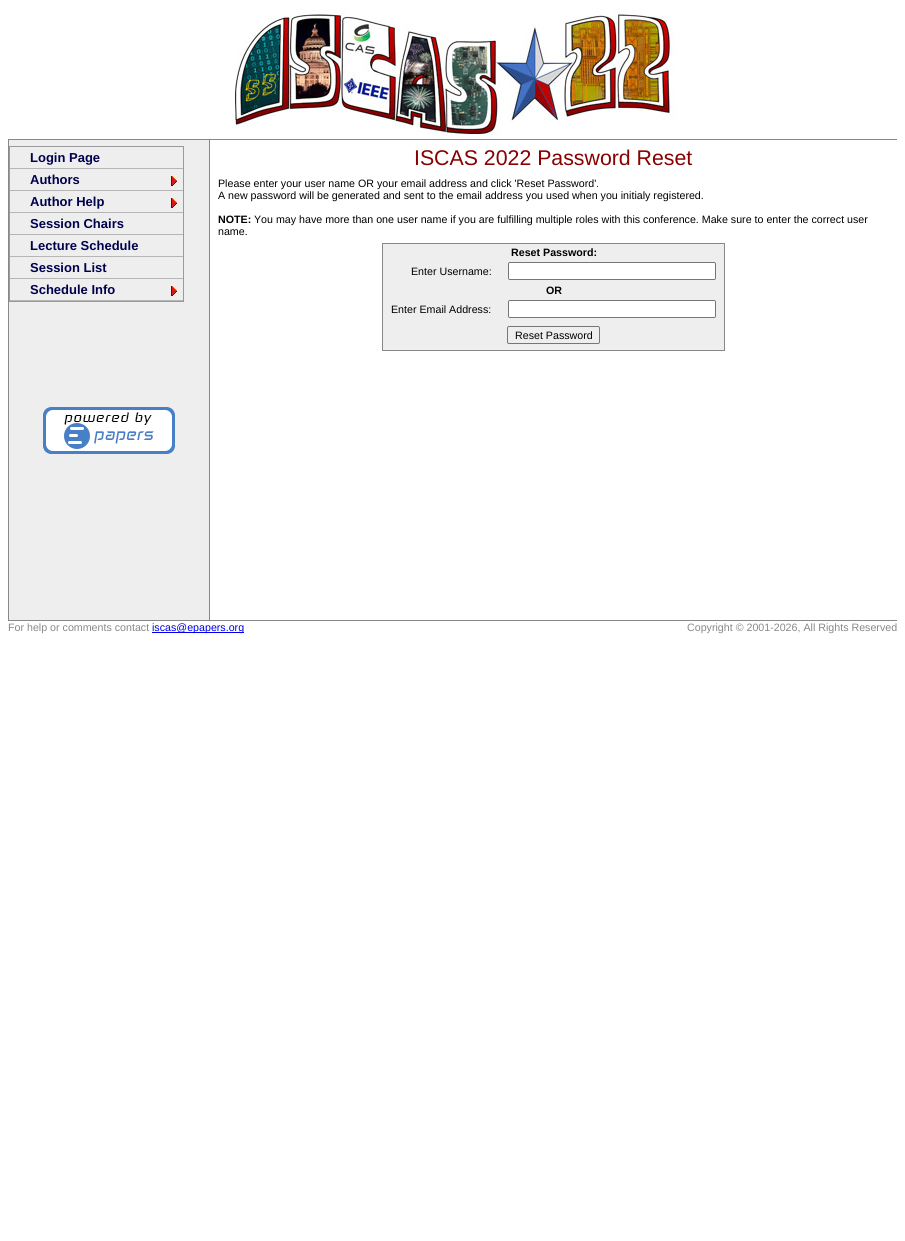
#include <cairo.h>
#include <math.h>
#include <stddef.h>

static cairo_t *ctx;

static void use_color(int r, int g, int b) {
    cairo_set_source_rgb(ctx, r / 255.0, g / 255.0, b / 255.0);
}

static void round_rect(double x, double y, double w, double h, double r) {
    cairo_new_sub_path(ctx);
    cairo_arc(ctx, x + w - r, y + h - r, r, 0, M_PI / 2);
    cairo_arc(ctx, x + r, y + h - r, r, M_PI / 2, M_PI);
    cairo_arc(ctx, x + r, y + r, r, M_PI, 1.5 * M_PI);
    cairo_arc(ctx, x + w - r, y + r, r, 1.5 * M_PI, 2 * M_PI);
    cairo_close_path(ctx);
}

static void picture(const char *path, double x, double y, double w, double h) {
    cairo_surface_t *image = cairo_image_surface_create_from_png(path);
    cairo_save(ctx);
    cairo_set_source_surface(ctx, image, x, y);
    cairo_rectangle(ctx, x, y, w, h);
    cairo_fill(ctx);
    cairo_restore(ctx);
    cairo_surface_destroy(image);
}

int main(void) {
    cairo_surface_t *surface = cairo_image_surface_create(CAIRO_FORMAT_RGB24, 905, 1241);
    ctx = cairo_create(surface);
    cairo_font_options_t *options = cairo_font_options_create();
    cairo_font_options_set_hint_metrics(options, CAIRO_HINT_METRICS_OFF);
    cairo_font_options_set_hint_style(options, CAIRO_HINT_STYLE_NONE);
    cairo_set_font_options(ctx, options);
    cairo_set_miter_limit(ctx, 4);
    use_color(255, 255, 255);
    cairo_paint(ctx);
    use_color(136, 136, 136);
    cairo_rectangle(ctx, 8, 139, 889, 1);
    cairo_fill(ctx);
    picture("img1.png", 235, 8, 441, 128);
    use_color(238, 238, 238);
    cairo_rectangle(ctx, 9, 140, 200, 480);
    cairo_fill(ctx);
    use_color(136, 136, 136);
    cairo_rectangle(ctx, 209, 140, 1, 480);
    cairo_fill(ctx);
    cairo_rectangle(ctx, 8, 140, 1, 480);
    cairo_fill(ctx);
    cairo_rectangle(ctx, 9.5, 146.5, 174, 155);
    use_color(154, 154, 154);
    cairo_set_line_width(ctx, 1);
    cairo_stroke(ctx);
    use_color(181, 181, 181);
    cairo_rectangle(ctx, 10, 168, 173, 1);
    cairo_fill(ctx);
    cairo_select_font_face(ctx, "Liberation Sans", CAIRO_FONT_SLANT_NORMAL, CAIRO_FONT_WEIGHT_BOLD);
    cairo_set_font_size(ctx, 13);
    use_color(0, 1, 78);
    cairo_move_to(ctx, 30, 162);
    cairo_show_text(ctx, "Login Page");
    use_color(181, 181, 181);
    cairo_rectangle(ctx, 10, 190, 173, 1);
    cairo_fill(ctx);
    use_color(0, 1, 78);
    cairo_move_to(ctx, 30, 184);
    cairo_show_text(ctx, "Authors");
    picture("img2.png", 171, 176, 6, 10);
    use_color(181, 181, 181);
    cairo_rectangle(ctx, 10, 212, 173, 1);
    cairo_fill(ctx);
    use_color(0, 1, 78);
    cairo_move_to(ctx, 30, 206);
    cairo_show_text(ctx, "Author Help");
    picture("img2.png", 171, 198, 6, 10);
    use_color(181, 181, 181);
    cairo_rectangle(ctx, 10, 234, 173, 1);
    cairo_fill(ctx);
    use_color(0, 1, 78);
    cairo_move_to(ctx, 30, 228);
    cairo_show_text(ctx, "Session Chairs");
    use_color(181, 181, 181);
    cairo_rectangle(ctx, 10, 256, 173, 1);
    cairo_fill(ctx);
    use_color(0, 1, 78);
    cairo_move_to(ctx, 30, 250);
    cairo_show_text(ctx, "Lecture Schedule");
    use_color(181, 181, 181);
    cairo_rectangle(ctx, 10, 278, 173, 1);
    cairo_fill(ctx);
    use_color(0, 1, 78);
    cairo_move_to(ctx, 30, 272);
    cairo_show_text(ctx, "Session List");
    use_color(181, 181, 181);
    cairo_rectangle(ctx, 10, 300, 173, 1);
    cairo_fill(ctx);
    use_color(0, 1, 78);
    cairo_move_to(ctx, 30, 294);
    cairo_show_text(ctx, "Schedule Info");
    picture("img2.png", 171, 286, 6, 10);
    picture("img3.png", 43, 407, 132, 47);
    cairo_select_font_face(ctx, "Liberation Sans", CAIRO_FONT_SLANT_NORMAL, CAIRO_FONT_WEIGHT_NORMAL);
    cairo_set_font_size(ctx, 21.3);
    use_color(136, 0, 0);
    cairo_move_to(ctx, 414, 165);
    cairo_show_text(ctx, "ISCAS 2022 Password Reset");
    cairo_set_font_size(ctx, 10.67);
    use_color(0, 0, 0);
    cairo_move_to(ctx, 218, 187);
    cairo_show_text(ctx, "Please enter your user name OR your email address and click 'Reset Password'.");
    cairo_move_to(ctx, 218, 199);
    cairo_show_text(ctx, "A new password will be generated and sent to the email address you used when you initialy registered.");
    cairo_select_font_face(ctx, "Liberation Sans", CAIRO_FONT_SLANT_NORMAL, CAIRO_FONT_WEIGHT_BOLD);
    cairo_move_to(ctx, 218, 223);
    cairo_show_text(ctx, "NOTE:");
    cairo_select_font_face(ctx, "Liberation Sans", CAIRO_FONT_SLANT_NORMAL, CAIRO_FONT_WEIGHT_NORMAL);
    cairo_move_to(ctx, 254, 223);
    cairo_show_text(ctx, "You may have more than one user name if you are fulfilling multiple roles with this conference. Make sure to enter the correct user");
    cairo_move_to(ctx, 218, 235);
    cairo_show_text(ctx, "name.");
    use_color(238, 238, 238);
    cairo_rectangle(ctx, 382.5, 243.5, 342, 107);
    cairo_fill_preserve(ctx);
    use_color(136, 136, 136);
    cairo_stroke(ctx);
    cairo_select_font_face(ctx, "Liberation Sans", CAIRO_FONT_SLANT_NORMAL, CAIRO_FONT_WEIGHT_BOLD);
    use_color(0, 0, 0);
    cairo_move_to(ctx, 511, 256);
    cairo_show_text(ctx, "Reset Password:");
    cairo_select_font_face(ctx, "Liberation Sans", CAIRO_FONT_SLANT_NORMAL, CAIRO_FONT_WEIGHT_NORMAL);
    cairo_move_to(ctx, 411, 275);
    cairo_show_text(ctx, "Enter Username:");
    use_color(255, 255, 255);
    round_rect(508.5, 262.5, 207, 17, 1.5);
    cairo_fill_preserve(ctx);
    use_color(118, 118, 118);
    cairo_stroke(ctx);
    cairo_select_font_face(ctx, "Liberation Sans", CAIRO_FONT_SLANT_NORMAL, CAIRO_FONT_WEIGHT_BOLD);
    use_color(0, 0, 0);
    cairo_move_to(ctx, 546, 294);
    cairo_show_text(ctx, "OR");
    cairo_select_font_face(ctx, "Liberation Sans", CAIRO_FONT_SLANT_NORMAL, CAIRO_FONT_WEIGHT_NORMAL);
    cairo_move_to(ctx, 391, 313);
    cairo_show_text(ctx, "Enter Email Address:");
    use_color(255, 255, 255);
    round_rect(508.5, 300.5, 207, 17, 1.5);
    cairo_fill_preserve(ctx);
    use_color(118, 118, 118);
    cairo_stroke(ctx);
    round_rect(507.5, 326.5, 92, 17, 1.5);
    cairo_stroke(ctx);
    use_color(0, 0, 0);
    cairo_move_to(ctx, 515, 339);
    cairo_show_text(ctx, "Reset Password");
    use_color(136, 136, 136);
    cairo_rectangle(ctx, 8, 620, 889, 1);
    cairo_fill(ctx);
    cairo_move_to(ctx, 8, 631);
    cairo_show_text(ctx, "For help or comments contact");
    use_color(0, 0, 238);
    cairo_rectangle(ctx, 152, 632, 92, 1);
    cairo_fill(ctx);
    cairo_move_to(ctx, 152, 631);
    cairo_show_text(ctx, "iscas@epapers.org");
    use_color(136, 136, 136);
    cairo_move_to(ctx, 687, 631);
    cairo_show_text(ctx, "Copyright © 2001-2026, All Rights Reserved");
    cairo_surface_write_to_png(surface, "result.png");
    cairo_font_options_destroy(options);
    cairo_destroy(ctx);
    cairo_surface_destroy(surface);
    return 0;
}
